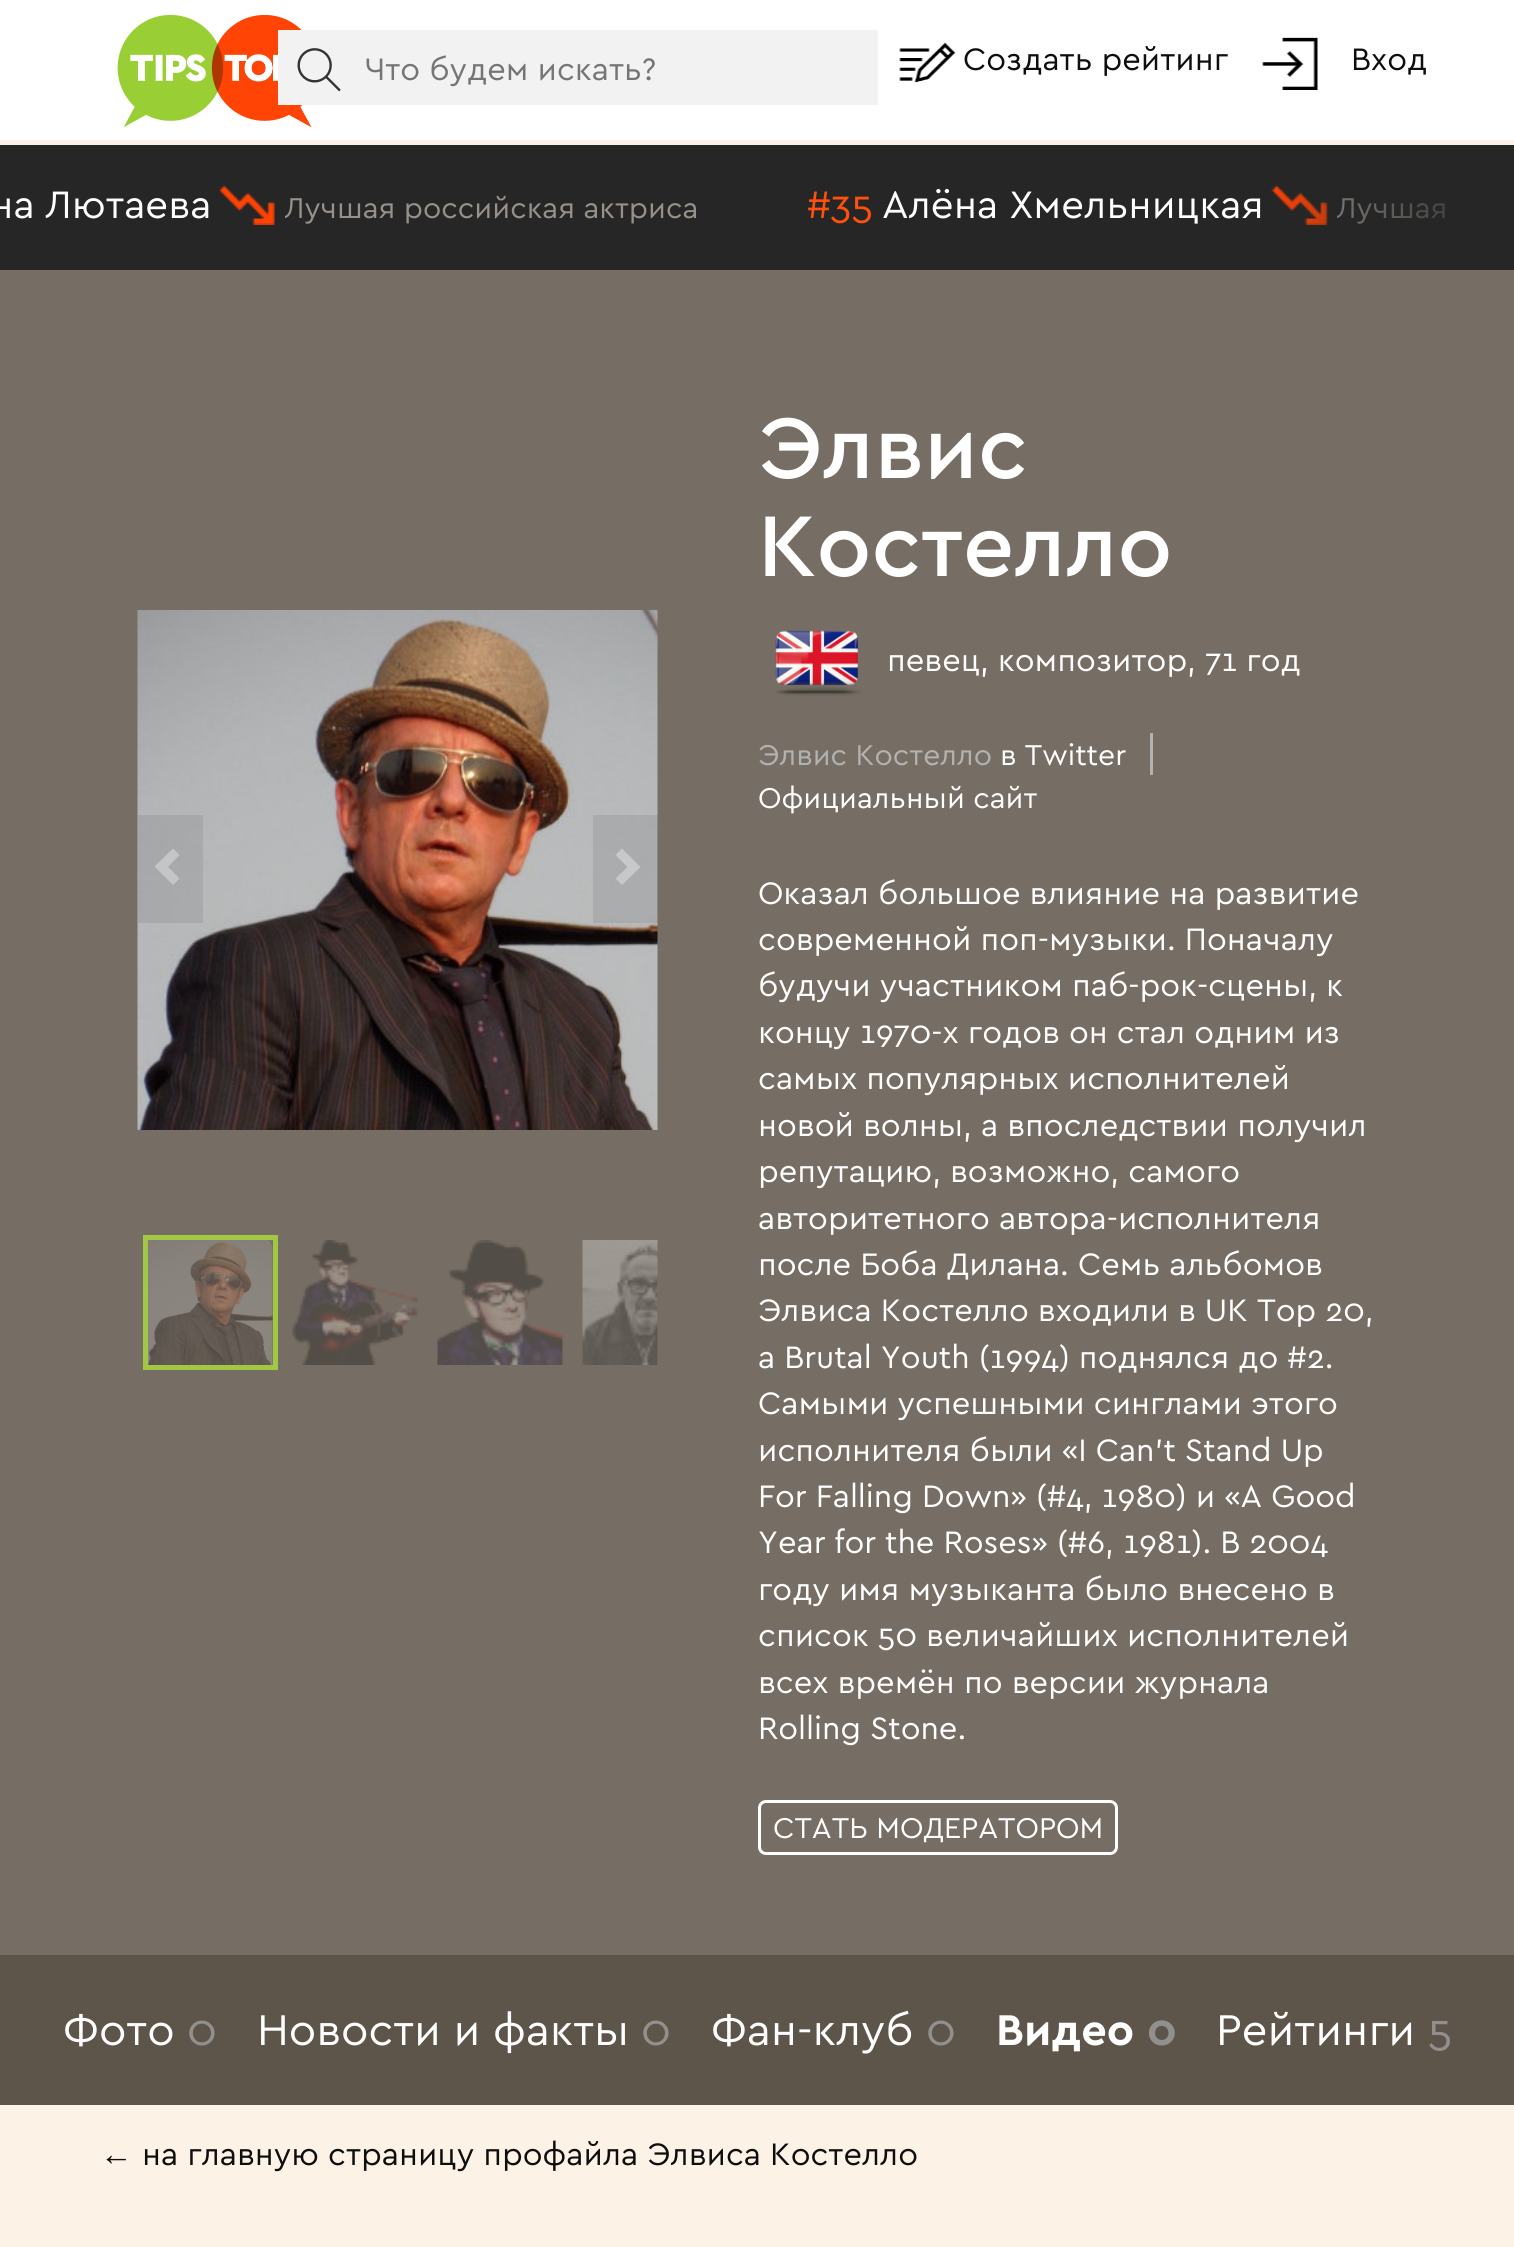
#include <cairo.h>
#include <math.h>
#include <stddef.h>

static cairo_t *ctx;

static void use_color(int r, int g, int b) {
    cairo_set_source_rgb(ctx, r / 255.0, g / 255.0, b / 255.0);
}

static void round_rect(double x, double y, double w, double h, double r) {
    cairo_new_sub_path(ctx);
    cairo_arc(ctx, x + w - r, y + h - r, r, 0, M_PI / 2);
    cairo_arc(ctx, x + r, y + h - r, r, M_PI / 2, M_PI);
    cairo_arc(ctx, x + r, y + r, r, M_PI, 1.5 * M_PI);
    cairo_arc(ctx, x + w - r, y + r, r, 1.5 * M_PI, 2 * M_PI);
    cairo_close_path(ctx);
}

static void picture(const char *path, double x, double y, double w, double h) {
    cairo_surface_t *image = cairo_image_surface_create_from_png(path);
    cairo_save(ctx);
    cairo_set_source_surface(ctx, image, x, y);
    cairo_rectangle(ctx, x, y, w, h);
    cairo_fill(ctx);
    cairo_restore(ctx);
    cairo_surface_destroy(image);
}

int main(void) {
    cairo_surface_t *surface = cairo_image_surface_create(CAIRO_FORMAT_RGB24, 1514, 2247);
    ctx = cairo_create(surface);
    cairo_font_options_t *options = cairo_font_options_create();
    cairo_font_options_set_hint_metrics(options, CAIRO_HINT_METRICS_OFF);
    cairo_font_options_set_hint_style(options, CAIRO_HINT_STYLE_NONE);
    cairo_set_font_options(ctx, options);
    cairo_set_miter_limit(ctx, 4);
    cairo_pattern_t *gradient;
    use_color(252, 242, 230);
    cairo_paint(ctx);
    use_color(255, 255, 255);
    cairo_rectangle(ctx, 0, 0, 1514, 140);
    cairo_fill(ctx);
    picture("img1.png", 117, 15, 195, 113);
    use_color(242, 242, 242);
    cairo_rectangle(ctx, 278, 30, 600, 75);
    cairo_fill(ctx);
    picture("img2.png", 297, 48, 44, 44);
    cairo_select_font_face(ctx, "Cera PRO", CAIRO_FONT_SLANT_NORMAL, CAIRO_FONT_WEIGHT_NORMAL);
    cairo_set_font_size(ctx, 32.5);
    use_color(117, 117, 117);
    cairo_move_to(ctx, 365, 80);
    cairo_show_text(ctx, "Что будем искать?");
    picture("img3.png", 899, 42, 57, 41);
    use_color(14, 14, 14);
    cairo_move_to(ctx, 963, 70);
    cairo_show_text(ctx, "Создать рейтинг");
    picture("img4.png", 1262, 37, 56, 53);
    cairo_move_to(ctx, 1351, 70);
    cairo_show_text(ctx, "Вход");
    use_color(38, 38, 38);
    cairo_rectangle(ctx, 0, 145, 1514, 125);
    cairo_fill(ctx);
    picture("img6.png", 1271, 185, 57, 40);
    cairo_set_font_size(ctx, 30);
    use_color(151, 145, 138);
    cairo_move_to(ctx, 1337, 218);
    cairo_show_text(ctx, "Лучшая");
    gradient = cairo_pattern_create_linear(1265, 208, 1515, 208);
    cairo_pattern_add_color_stop_rgba(gradient, 0, 0.149, 0.149, 0.149, 0);
    cairo_pattern_add_color_stop_rgba(gradient, 1, 0.149, 0.149, 0.149, 1);
    cairo_set_source(ctx, gradient);
    cairo_pattern_destroy(gradient);
    cairo_rectangle(ctx, 1272, 186, 174, 39);
    cairo_fill(ctx);
    cairo_set_font_size(ctx, 40);
    use_color(255, 255, 255);
    cairo_move_to(ctx, -10, 218);
    cairo_show_text(ctx, "на Лютаева");
    picture("img5.png", 220, 185, 55, 40);
    cairo_set_font_size(ctx, 30);
    use_color(151, 145, 138);
    cairo_move_to(ctx, 285, 218);
    cairo_show_text(ctx, "Лучшая российская актриса");
    cairo_set_font_size(ctx, 40);
    use_color(255, 80, 14);
    cairo_move_to(ctx, 807, 218);
    cairo_show_text(ctx, "#35");
    use_color(255, 255, 255);
    cairo_move_to(ctx, 882, 218);
    cairo_show_text(ctx, "Алёна Хмельницкая");
    use_color(118, 110, 100);
    cairo_rectangle(ctx, 0, 270, 1514, 1685);
    cairo_fill(ctx);
    picture("img7.png", 137, 610, 521, 520);
    cairo_set_source_rgba(ctx, 0, 0, 0, 0.08);
    cairo_rectangle(ctx, 138, 815, 65, 108);
    cairo_fill(ctx);
    use_color(196, 197, 198);
    cairo_new_path(ctx);
    cairo_move_to(ctx, 179.5, 855);
    cairo_line_to(ctx, 168, 867);
    cairo_line_to(ctx, 179.5, 878.5);
    cairo_line_to(ctx, 173, 885);
    cairo_line_to(ctx, 154.5, 866.5);
    cairo_line_to(ctx, 173, 848.5);
    cairo_close_path(ctx);
    cairo_fill(ctx);
    cairo_set_source_rgba(ctx, 0, 0, 0, 0.08);
    cairo_rectangle(ctx, 593, 815, 65, 108);
    cairo_fill(ctx);
    use_color(199, 200, 202);
    cairo_new_path(ctx);
    cairo_move_to(ctx, 640.5, 867);
    cairo_line_to(ctx, 622, 885);
    cairo_line_to(ctx, 615.5, 878.5);
    cairo_line_to(ctx, 627.5, 867);
    cairo_line_to(ctx, 615.5, 855);
    cairo_line_to(ctx, 622, 848.5);
    cairo_close_path(ctx);
    cairo_fill(ctx);
    cairo_rectangle(ctx, 145.5, 1237.5, 130, 130);
    use_color(162, 199, 67);
    cairo_set_line_width(ctx, 5);
    cairo_stroke(ctx);
    picture("img8.png", 147, 1240, 126, 125);
    picture("img9.png", 292, 1240, 126, 125);
    picture("img10.png", 437, 1240, 126, 125);
    picture("img11.png", 582, 1240, 76, 125);
    cairo_select_font_face(ctx, "Cera PRO Medium", CAIRO_FONT_SLANT_NORMAL, CAIRO_FONT_WEIGHT_NORMAL);
    cairo_set_font_size(ctx, 90);
    use_color(255, 255, 255);
    cairo_move_to(ctx, 758, 478);
    cairo_show_text(ctx, "Элвис");
    cairo_move_to(ctx, 758, 576);
    cairo_show_text(ctx, "Костелло");
    picture("img12.png", 775, 630, 87, 66);
    cairo_select_font_face(ctx, "Cera PRO", CAIRO_FONT_SLANT_NORMAL, CAIRO_FONT_WEIGHT_NORMAL);
    cairo_set_font_size(ctx, 32.5);
    cairo_move_to(ctx, 887, 671);
    cairo_show_text(ctx, "певец, композитор, 71 год");
    use_color(178, 178, 178);
    cairo_rectangle(ctx, 1150, 733, 3, 42);
    cairo_fill(ctx);
    cairo_set_font_size(ctx, 30);
    cairo_move_to(ctx, 758, 765);
    cairo_show_text(ctx, "Элвис Костелло");
    use_color(255, 255, 255);
    cairo_move_to(ctx, 1000, 765);
    cairo_show_text(ctx, "в Twitter");
    cairo_move_to(ctx, 758, 808);
    cairo_show_text(ctx, "Официальный сайт");
    cairo_set_font_size(ctx, 32.5);
    cairo_move_to(ctx, 758, 904);
    cairo_show_text(ctx, "Оказал большое влияние на развитие");
    cairo_move_to(ctx, 758, 950);
    cairo_show_text(ctx, "современной поп-музыки. Поначалу");
    cairo_move_to(ctx, 758, 996);
    cairo_show_text(ctx, "будучи участником паб-рок-сцены, к");
    cairo_move_to(ctx, 758, 1043);
    cairo_show_text(ctx, "концу 1970-х годов он стал одним из");
    cairo_move_to(ctx, 758, 1089);
    cairo_show_text(ctx, "самых популярных исполнителей");
    cairo_move_to(ctx, 758, 1136);
    cairo_show_text(ctx, "новой волны, а впоследствии получил");
    cairo_move_to(ctx, 758, 1182);
    cairo_show_text(ctx, "репутацию, возможно, самого");
    cairo_move_to(ctx, 758, 1229);
    cairo_show_text(ctx, "авторитетного автора-исполнителя");
    cairo_move_to(ctx, 758, 1275);
    cairo_show_text(ctx, "после Боба Дилана. Семь альбомов");
    cairo_move_to(ctx, 758, 1321);
    cairo_show_text(ctx, "Элвиса Костелло входили в UK Top 20,");
    cairo_move_to(ctx, 758, 1368);
    cairo_show_text(ctx, "а Brutal Youth (1994) поднялся до #2.");
    cairo_move_to(ctx, 758, 1414);
    cairo_show_text(ctx, "Самыми успешными синглами этого");
    cairo_move_to(ctx, 758, 1461);
    cairo_show_text(ctx, "исполнителя были «I Can’t Stand Up");
    cairo_move_to(ctx, 758, 1507);
    cairo_show_text(ctx, "For Falling Down» (#4, 1980) и «A Good");
    cairo_move_to(ctx, 758, 1553);
    cairo_show_text(ctx, "Year for the Roses» (#6, 1981). В 2004");
    cairo_move_to(ctx, 758, 1600);
    cairo_show_text(ctx, "году имя музыканта было внесено в");
    cairo_move_to(ctx, 758, 1646);
    cairo_show_text(ctx, "список 50 величайших исполнителей");
    cairo_move_to(ctx, 758, 1693);
    cairo_show_text(ctx, "всех времён по версии журнала");
    cairo_move_to(ctx, 758, 1739);
    cairo_show_text(ctx, "Rolling Stone.");
    round_rect(759.5, 1801.5, 357, 52, 6.5);
    cairo_set_line_width(ctx, 3);
    cairo_stroke(ctx);
    cairo_set_font_size(ctx, 30);
    cairo_move_to(ctx, 773, 1838);
    cairo_show_text(ctx, "СТАТЬ МОДЕРАТОРОМ");
    use_color(93, 84, 74);
    cairo_rectangle(ctx, 0, 1955, 1514, 150);
    cairo_fill(ctx);
    cairo_set_font_size(ctx, 45);
    use_color(255, 255, 255);
    cairo_move_to(ctx, 63, 2045);
    cairo_show_text(ctx, "Фото");
    use_color(145, 144, 142);
    cairo_move_to(ctx, 187, 2045);
    cairo_show_text(ctx, "0");
    use_color(255, 255, 255);
    cairo_move_to(ctx, 257, 2045);
    cairo_show_text(ctx, "Новости и факты");
    use_color(145, 144, 142);
    cairo_move_to(ctx, 641, 2045);
    cairo_show_text(ctx, "0");
    use_color(255, 255, 255);
    cairo_move_to(ctx, 711, 2045);
    cairo_show_text(ctx, "Фан-клуб");
    use_color(145, 144, 142);
    cairo_move_to(ctx, 926, 2045);
    cairo_show_text(ctx, "0");
    cairo_select_font_face(ctx, "Cera PRO", CAIRO_FONT_SLANT_NORMAL, CAIRO_FONT_WEIGHT_BOLD);
    use_color(255, 255, 255);
    cairo_move_to(ctx, 996, 2045);
    cairo_show_text(ctx, "Видео");
    use_color(145, 144, 142);
    cairo_move_to(ctx, 1147, 2045);
    cairo_show_text(ctx, "0");
    cairo_select_font_face(ctx, "Cera PRO", CAIRO_FONT_SLANT_NORMAL, CAIRO_FONT_WEIGHT_NORMAL);
    use_color(255, 255, 255);
    cairo_move_to(ctx, 1216, 2045);
    cairo_show_text(ctx, "Рейтинги");
    use_color(145, 144, 142);
    cairo_move_to(ctx, 1428, 2045);
    cairo_show_text(ctx, "5");
    cairo_select_font_face(ctx, "Liberation Sans", CAIRO_FONT_SLANT_NORMAL, CAIRO_FONT_WEIGHT_NORMAL);
    cairo_set_font_size(ctx, 32.5);
    use_color(14, 14, 14);
    cairo_move_to(ctx, 100, 2165);
    cairo_show_text(ctx, "←");
    cairo_select_font_face(ctx, "Cera PRO", CAIRO_FONT_SLANT_NORMAL, CAIRO_FONT_WEIGHT_NORMAL);
    cairo_move_to(ctx, 142, 2165);
    cairo_show_text(ctx, "на главную страницу профайла Элвиса Костелло");
    cairo_surface_write_to_png(surface, "result.png");
    cairo_font_options_destroy(options);
    cairo_destroy(ctx);
    cairo_surface_destroy(surface);
    return 0;
}
